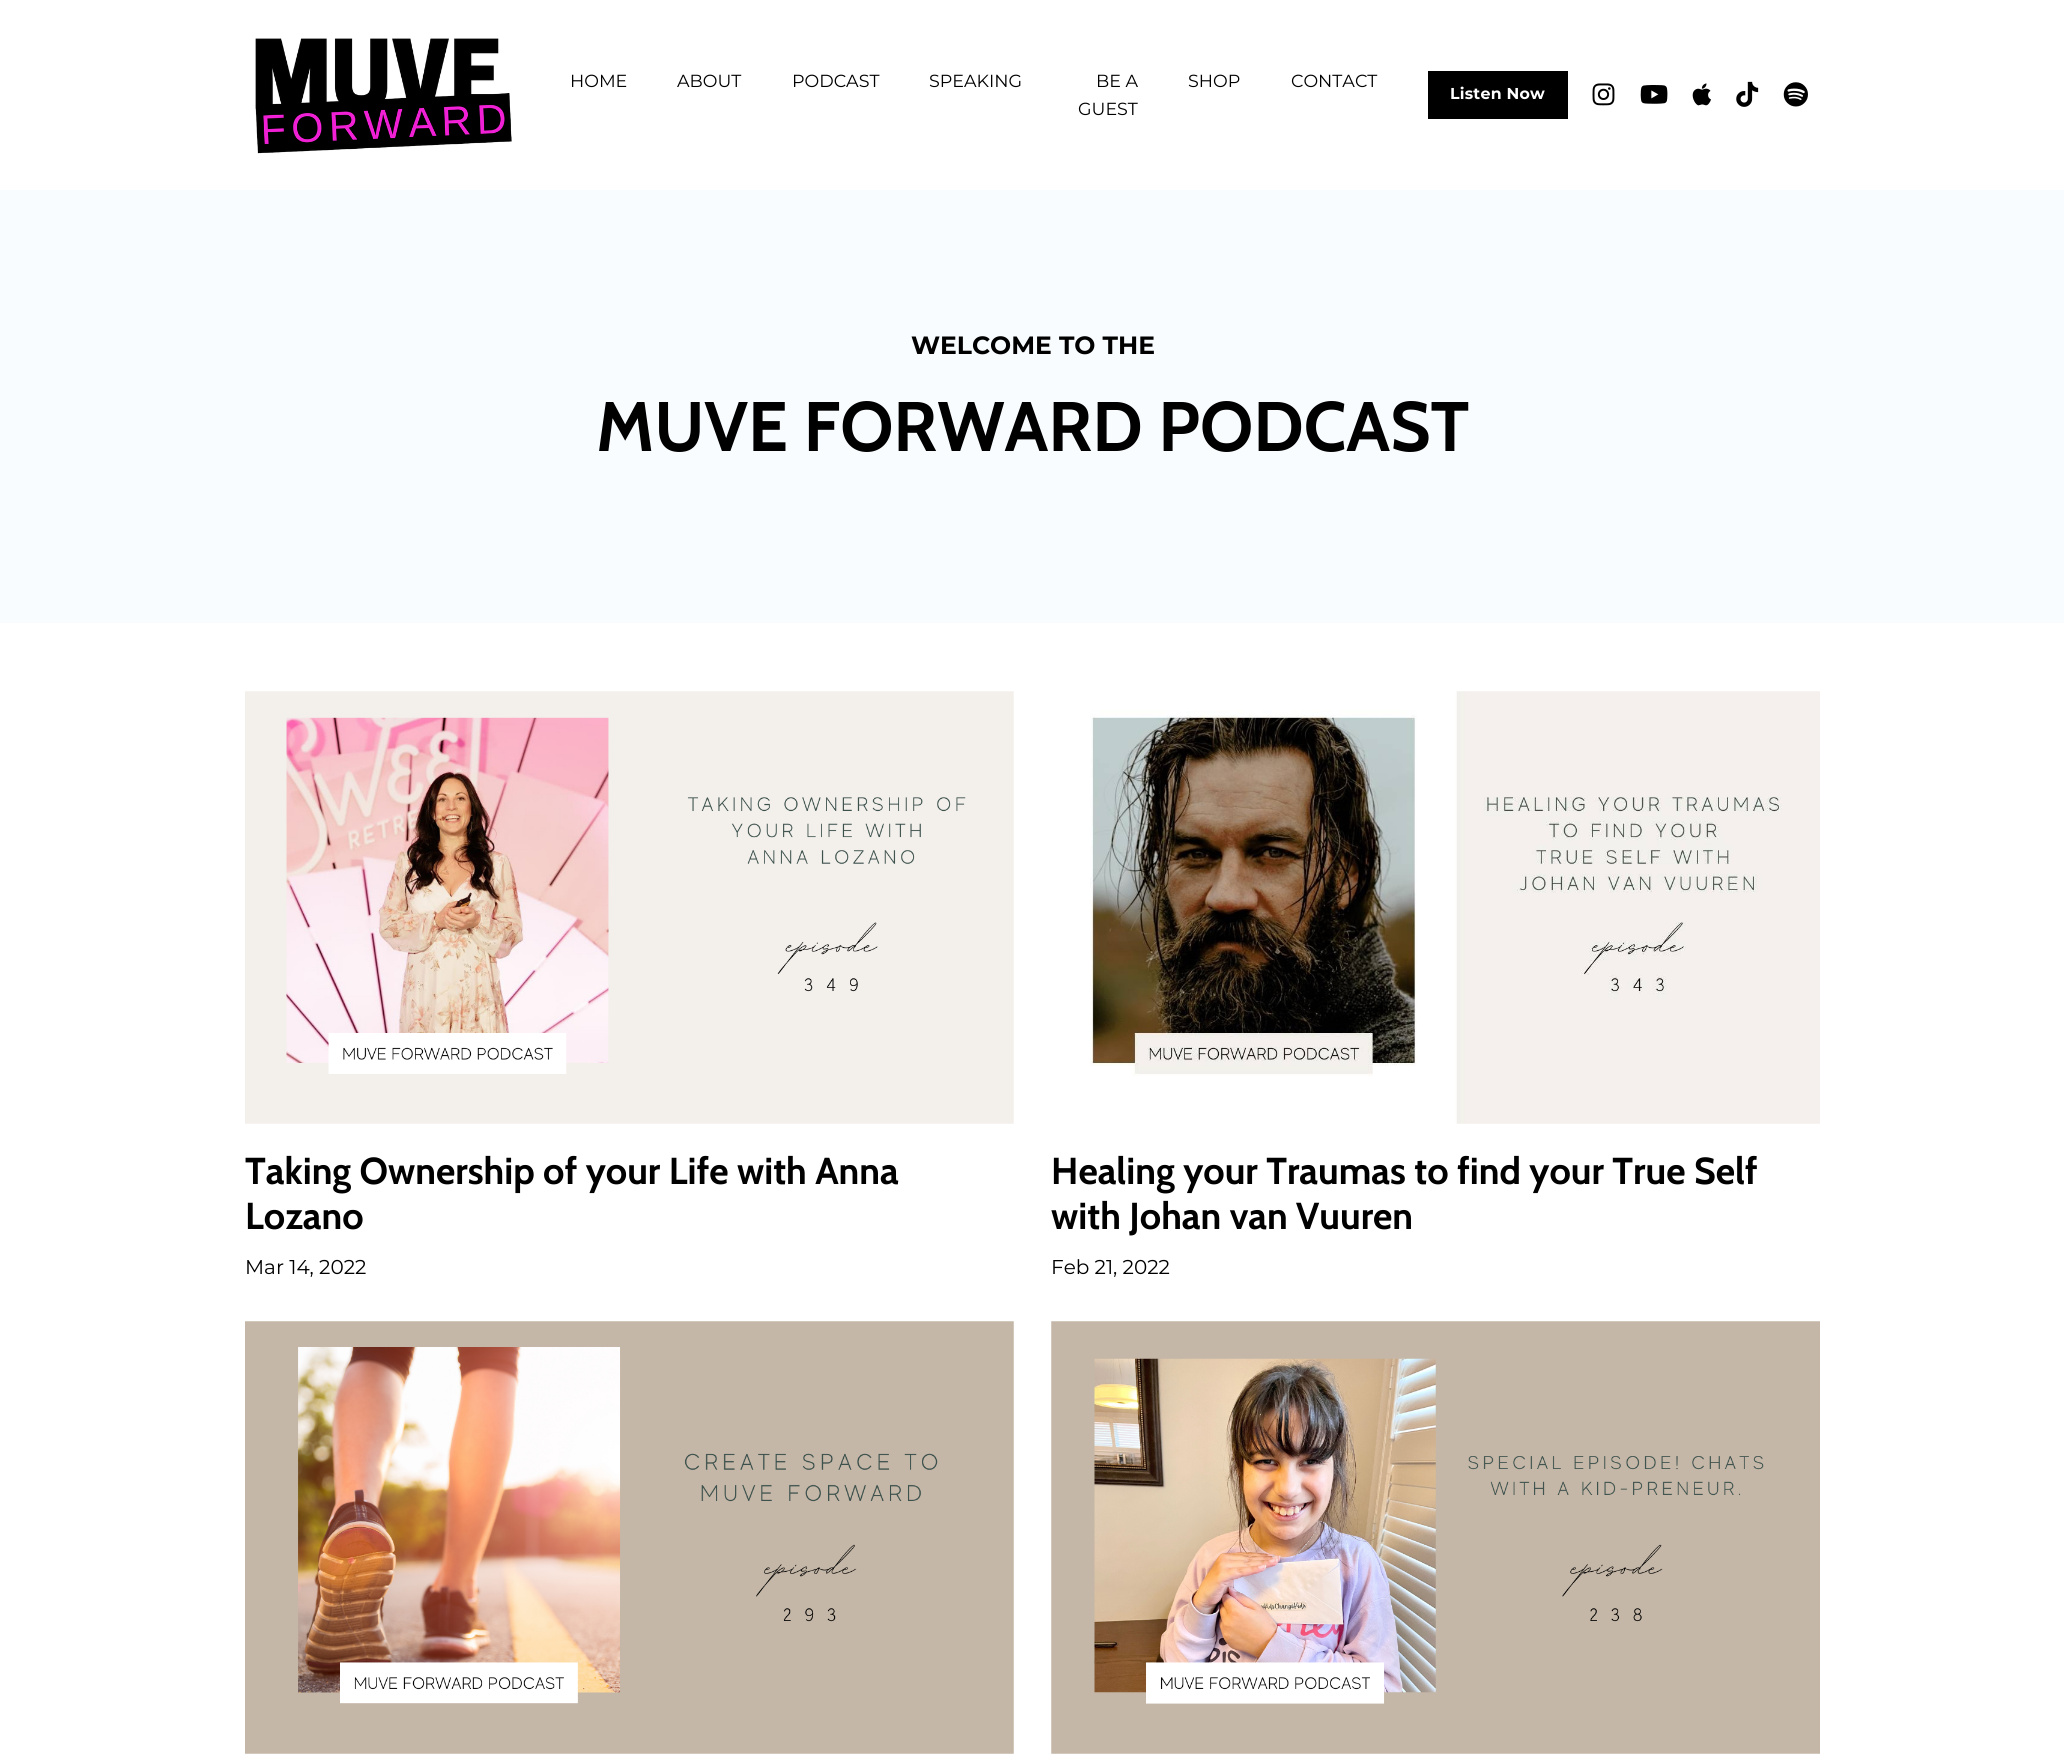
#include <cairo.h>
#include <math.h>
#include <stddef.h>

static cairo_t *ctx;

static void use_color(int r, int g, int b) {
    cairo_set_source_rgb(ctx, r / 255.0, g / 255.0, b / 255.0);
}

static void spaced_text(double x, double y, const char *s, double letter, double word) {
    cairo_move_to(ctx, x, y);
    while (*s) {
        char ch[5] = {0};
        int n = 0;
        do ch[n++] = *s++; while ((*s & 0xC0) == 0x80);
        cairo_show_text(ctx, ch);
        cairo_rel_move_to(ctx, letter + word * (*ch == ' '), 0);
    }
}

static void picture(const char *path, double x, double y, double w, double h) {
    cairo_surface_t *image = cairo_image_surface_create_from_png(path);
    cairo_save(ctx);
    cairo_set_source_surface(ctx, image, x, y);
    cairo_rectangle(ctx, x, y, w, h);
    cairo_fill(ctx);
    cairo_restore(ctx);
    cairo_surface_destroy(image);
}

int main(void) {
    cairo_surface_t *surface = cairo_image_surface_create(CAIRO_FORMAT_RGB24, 2064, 1760);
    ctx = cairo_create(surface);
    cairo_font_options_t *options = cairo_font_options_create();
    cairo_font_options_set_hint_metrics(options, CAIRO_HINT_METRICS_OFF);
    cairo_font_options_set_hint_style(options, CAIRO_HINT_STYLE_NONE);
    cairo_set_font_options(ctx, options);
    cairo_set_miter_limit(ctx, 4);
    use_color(249, 252, 255);
    cairo_paint(ctx);
    use_color(255, 255, 255);
    cairo_rectangle(ctx, 0, 0, 2064, 190);
    cairo_fill(ctx);
    picture("img1.png", 255, 38, 257, 116);
    cairo_select_font_face(ctx, "Montserrat", CAIRO_FONT_SLANT_NORMAL, CAIRO_FONT_WEIGHT_NORMAL);
    cairo_set_font_size(ctx, 17.5);
    use_color(0, 0, 0);
    cairo_move_to(ctx, 570, 87);
    cairo_show_text(ctx, "HOME");
    cairo_move_to(ctx, 677, 87);
    cairo_show_text(ctx, "ABOUT");
    cairo_move_to(ctx, 792, 87);
    cairo_show_text(ctx, "PODCAST");
    cairo_move_to(ctx, 929, 87);
    cairo_show_text(ctx, "SPEAKING");
    cairo_move_to(ctx, 1096, 87);
    cairo_show_text(ctx, "BE A");
    cairo_move_to(ctx, 1078, 115);
    cairo_show_text(ctx, "GUEST");
    cairo_move_to(ctx, 1188, 87);
    cairo_show_text(ctx, "SHOP");
    cairo_move_to(ctx, 1291, 87);
    cairo_show_text(ctx, "CONTACT");
    cairo_rectangle(ctx, 1428, 71, 140, 48);
    cairo_fill(ctx);
    cairo_select_font_face(ctx, "Montserrat", CAIRO_FONT_SLANT_NORMAL, CAIRO_FONT_WEIGHT_BOLD);
    cairo_set_font_size(ctx, 15.75);
    use_color(255, 255, 255);
    spaced_text(1450, 99, "Listen Now", 0.25, 0);
    picture("img2.png", 1592, 83, 23, 23);
    picture("img3.png", 1640, 85, 28, 19);
    picture("img4.png", 1692, 83, 19, 23);
    picture("img5.png", 1736, 81, 23, 26);
    picture("img6.png", 1783, 82, 25, 25);
    cairo_set_font_size(ctx, 25);
    use_color(0, 0, 0);
    cairo_move_to(ctx, 911, 354);
    cairo_show_text(ctx, "WELCOME TO THE");
    cairo_select_font_face(ctx, "Cabin", CAIRO_FONT_SLANT_NORMAL, CAIRO_FONT_WEIGHT_BOLD);
    cairo_set_font_size(ctx, 70);
    cairo_move_to(ctx, 596, 451);
    cairo_show_text(ctx, "MUVE FORWARD PODCAST");
    use_color(255, 255, 255);
    cairo_rectangle(ctx, 0, 623, 2064, 1137);
    cairo_fill(ctx);
    picture("img7.png", 245, 691, 769, 433);
    cairo_set_font_size(ctx, 37.5);
    use_color(0, 0, 0);
    cairo_move_to(ctx, 245, 1184);
    cairo_show_text(ctx, "Taking Ownership of your Life with Anna");
    cairo_move_to(ctx, 245, 1229);
    cairo_show_text(ctx, "Lozano");
    cairo_select_font_face(ctx, "Montserrat", CAIRO_FONT_SLANT_NORMAL, CAIRO_FONT_WEIGHT_NORMAL);
    cairo_set_font_size(ctx, 20);
    cairo_move_to(ctx, 245, 1274);
    cairo_show_text(ctx, "Mar 14, 2022");
    picture("img8.png", 1090, 691, 730, 433);
    cairo_select_font_face(ctx, "Cabin", CAIRO_FONT_SLANT_NORMAL, CAIRO_FONT_WEIGHT_BOLD);
    cairo_set_font_size(ctx, 37.5);
    cairo_move_to(ctx, 1051, 1184);
    cairo_show_text(ctx, "Healing your Traumas to find your True Self");
    cairo_move_to(ctx, 1051, 1229);
    cairo_show_text(ctx, "with Johan van Vuuren");
    cairo_select_font_face(ctx, "Montserrat", CAIRO_FONT_SLANT_NORMAL, CAIRO_FONT_WEIGHT_NORMAL);
    cairo_set_font_size(ctx, 20);
    cairo_move_to(ctx, 1051, 1274);
    cairo_show_text(ctx, "Feb 21, 2022");
    picture("img9.png", 245, 1321, 769, 433);
    picture("img10.png", 1051, 1321, 769, 433);
    cairo_surface_write_to_png(surface, "result.png");
    cairo_font_options_destroy(options);
    cairo_destroy(ctx);
    cairo_surface_destroy(surface);
    return 0;
}
